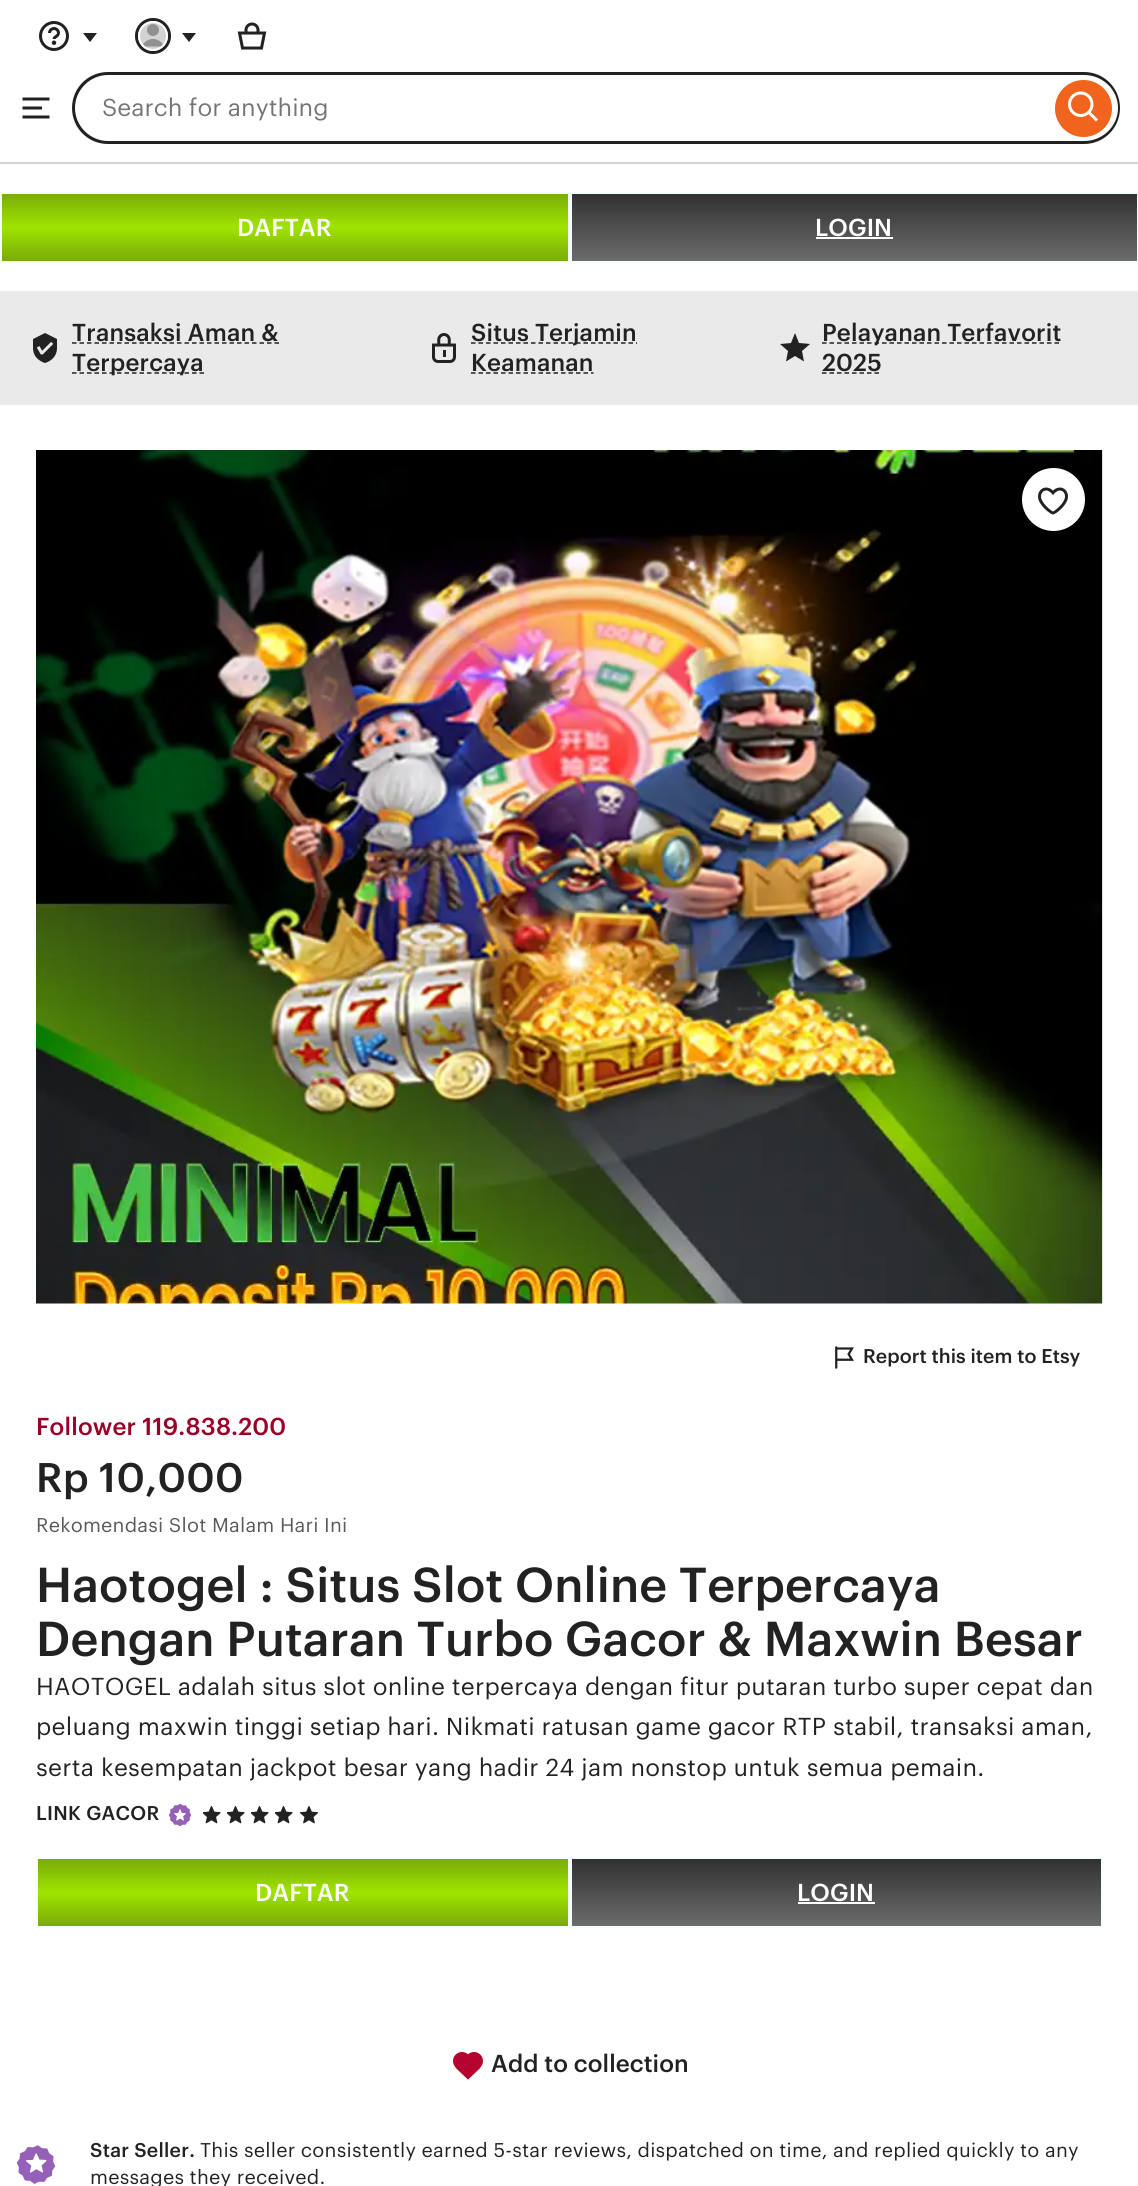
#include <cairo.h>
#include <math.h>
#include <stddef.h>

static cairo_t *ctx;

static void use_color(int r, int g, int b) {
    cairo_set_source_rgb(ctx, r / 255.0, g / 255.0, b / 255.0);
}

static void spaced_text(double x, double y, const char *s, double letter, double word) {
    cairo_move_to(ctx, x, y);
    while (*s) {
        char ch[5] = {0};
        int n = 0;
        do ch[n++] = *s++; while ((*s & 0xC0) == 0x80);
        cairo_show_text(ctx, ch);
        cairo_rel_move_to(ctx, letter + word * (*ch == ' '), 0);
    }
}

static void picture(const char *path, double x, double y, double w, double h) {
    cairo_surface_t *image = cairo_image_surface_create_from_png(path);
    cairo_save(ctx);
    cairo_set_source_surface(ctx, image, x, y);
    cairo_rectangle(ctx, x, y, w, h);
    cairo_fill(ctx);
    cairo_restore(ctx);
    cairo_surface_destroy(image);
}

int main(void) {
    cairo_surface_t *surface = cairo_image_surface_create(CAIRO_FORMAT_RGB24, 1138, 2186);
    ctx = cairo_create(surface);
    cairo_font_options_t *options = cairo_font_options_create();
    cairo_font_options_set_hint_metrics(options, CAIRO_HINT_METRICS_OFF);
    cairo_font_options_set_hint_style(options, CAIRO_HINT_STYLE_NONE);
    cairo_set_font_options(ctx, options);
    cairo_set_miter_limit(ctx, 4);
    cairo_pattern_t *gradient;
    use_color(255, 255, 255);
    cairo_paint(ctx);
    use_color(212, 212, 212);
    cairo_rectangle(ctx, 0, 162, 1138, 2);
    cairo_fill(ctx);
    picture("img1.png", 39, 21, 30, 30);
    use_color(34, 34, 34);
    cairo_new_path(ctx);
    cairo_move_to(ctx, 97, 33);
    cairo_line_to(ctx, 90, 42);
    cairo_line_to(ctx, 83, 33);
    cairo_close_path(ctx);
    cairo_fill(ctx);
    picture("img2.png", 135, 18, 36, 36);
    cairo_arc(ctx, 153, 36, 16.5, 0, 2 * M_PI);
    cairo_set_line_width(ctx, 3);
    cairo_stroke(ctx);
    cairo_arc(ctx, 153, 36, 14, 0, 2 * M_PI);
    use_color(255, 255, 255);
    cairo_set_line_width(ctx, 2);
    cairo_stroke(ctx);
    use_color(34, 34, 34);
    cairo_new_path(ctx);
    cairo_move_to(ctx, 196, 33);
    cairo_line_to(ctx, 189, 42);
    cairo_line_to(ctx, 182, 33);
    cairo_close_path(ctx);
    cairo_fill(ctx);
    cairo_set_fill_rule(ctx, CAIRO_FILL_RULE_EVEN_ODD);
    cairo_new_path(ctx);
    cairo_move_to(ctx, 108, 72);
    cairo_line_to(ctx, 1047, 72);
    cairo_line_to(ctx, 1047, 144);
    cairo_line_to(ctx, 108, 144);
    cairo_curve_to(ctx, 88, 144, 72, 128, 72, 108);
    cairo_curve_to(ctx, 72, 88, 88, 72, 108, 72);
    cairo_close_path(ctx);
    cairo_move_to(ctx, 108, 75);
    cairo_line_to(ctx, 1047, 75);
    cairo_line_to(ctx, 1047, 141);
    cairo_line_to(ctx, 108, 141);
    cairo_curve_to(ctx, 90, 141, 75, 126, 75, 108);
    cairo_curve_to(ctx, 75, 90, 90, 75, 108, 75);
    cairo_close_path(ctx);
    cairo_fill(ctx);
    cairo_select_font_face(ctx, "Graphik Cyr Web", CAIRO_FONT_SLANT_NORMAL, CAIRO_FONT_WEIGHT_NORMAL);
    cairo_set_font_size(ctx, 24);
    use_color(117, 117, 117);
    cairo_move_to(ctx, 102, 116);
    cairo_show_text(ctx, "Search for anything");
    use_color(182, 182, 182);
    cairo_set_fill_rule(ctx, CAIRO_FILL_RULE_WINDING);
    cairo_new_path(ctx);
    cairo_move_to(ctx, 216, 108);
    cairo_line_to(ctx, 216, 106.5);
    cairo_line_to(ctx, 217.5, 108);
    cairo_close_path(ctx);
    cairo_fill(ctx);
    picture("img3.png", 237, 22, 30, 28);
    picture("img4.png", 22, 97, 28, 22);
    use_color(34, 34, 34);
    cairo_set_fill_rule(ctx, CAIRO_FILL_RULE_EVEN_ODD);
    cairo_new_path(ctx);
    cairo_move_to(ctx, 1047, 72);
    cairo_line_to(ctx, 1084, 72);
    cairo_curve_to(ctx, 1104, 72, 1120, 88, 1120, 108);
    cairo_curve_to(ctx, 1120, 128, 1104, 144, 1084, 144);
    cairo_line_to(ctx, 1047, 144);
    cairo_close_path(ctx);
    cairo_move_to(ctx, 1047, 75);
    cairo_line_to(ctx, 1084, 75);
    cairo_curve_to(ctx, 1103, 75, 1118, 90, 1118, 108);
    cairo_curve_to(ctx, 1118, 126, 1103, 141, 1084, 141);
    cairo_line_to(ctx, 1047, 141);
    cairo_close_path(ctx);
    cairo_fill(ctx);
    use_color(241, 100, 30);
    cairo_arc(ctx, 1083.5, 108.5, 28.5, 0, 2 * M_PI);
    cairo_fill(ctx);
    picture("img5.png", 1068, 91, 30, 31);
    gradient = cairo_pattern_create_linear(285, 193, 285, 261);
    cairo_pattern_add_color_stop_rgba(gradient, 0, 0.478, 0.667, 0.039, 1);
    cairo_pattern_add_color_stop_rgba(gradient, 0.5, 0.624, 0.894, 0, 1);
    cairo_pattern_add_color_stop_rgba(gradient, 1, 0.478, 0.667, 0.039, 1);
    cairo_set_source(ctx, gradient);
    cairo_pattern_destroy(gradient);
    cairo_rectangle(ctx, 2, 194, 566, 67);
    cairo_fill(ctx);
    cairo_rectangle(ctx, 1, 193, 568, 69);
    use_color(244, 254, 255);
    cairo_stroke(ctx);
    cairo_select_font_face(ctx, "Graphik Cyr Web Medium", CAIRO_FONT_SLANT_NORMAL, CAIRO_FONT_WEIGHT_NORMAL);
    use_color(255, 255, 255);
    cairo_move_to(ctx, 237, 236);
    cairo_show_text(ctx, "DAFTAR");
    gradient = cairo_pattern_create_linear(854, 193, 854, 261);
    cairo_pattern_add_color_stop_rgba(gradient, 0, 0.192, 0.192, 0.192, 1);
    cairo_pattern_add_color_stop_rgba(gradient, 1, 0.424, 0.424, 0.424, 1);
    cairo_set_source(ctx, gradient);
    cairo_pattern_destroy(gradient);
    cairo_rectangle(ctx, 572, 194, 565, 67);
    cairo_fill(ctx);
    cairo_rectangle(ctx, 571, 193, 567, 69);
    use_color(244, 254, 255);
    cairo_stroke(ctx);
    use_color(255, 255, 255);
    cairo_move_to(ctx, 815, 236);
    cairo_show_text(ctx, "LOGIN");
    cairo_rectangle(ctx, 816, 237, 77, 2);
    cairo_fill(ctx);
    use_color(234, 234, 234);
    cairo_rectangle(ctx, 0, 291, 1138, 114);
    cairo_fill(ctx);
    picture("img6.png", 33, 333, 24, 30);
    use_color(34, 34, 34);
    spaced_text(72, 341, "Transaksi Aman &", 0.1, 0);
    cairo_new_path(ctx);
    cairo_move_to(ctx, 72, 343);
    cairo_line_to(ctx, 279, 343);
    cairo_set_line_width(ctx, 1.5);
    cairo_set_dash(ctx, (double[]){4.5, 3}, 2, 0);
    cairo_stroke(ctx);
    cairo_new_path(ctx);
    cairo_move_to(ctx, 72, 373);
    cairo_line_to(ctx, 204, 373);
    cairo_stroke(ctx);
    spaced_text(72, 371, "Terpercaya", 0.1, 0);
    picture("img7.png", 432, 333, 24, 30);
    cairo_new_path(ctx);
    cairo_move_to(ctx, 471, 343);
    cairo_line_to(ctx, 637, 343);
    cairo_stroke(ctx);
    spaced_text(471, 341, "Situs Terjamin", 0.1, 0);
    spaced_text(471, 371, "Keamanan", 0.1, 0);
    cairo_new_path(ctx);
    cairo_move_to(ctx, 471, 373);
    cairo_line_to(ctx, 593.5, 373);
    cairo_stroke(ctx);
    cairo_set_fill_rule(ctx, CAIRO_FILL_RULE_WINDING);
    cairo_new_path(ctx);
    cairo_move_to(ctx, 799, 343);
    cairo_line_to(ctx, 795, 333);
    cairo_line_to(ctx, 791, 343);
    cairo_line_to(ctx, 780, 344);
    cairo_line_to(ctx, 788, 351);
    cairo_line_to(ctx, 786, 361.5);
    cairo_line_to(ctx, 795, 356);
    cairo_line_to(ctx, 804, 361.5);
    cairo_line_to(ctx, 802, 351);
    cairo_line_to(ctx, 810, 344);
    cairo_close_path(ctx);
    cairo_fill(ctx);
    cairo_new_path(ctx);
    cairo_move_to(ctx, 822, 343);
    cairo_line_to(ctx, 1062, 343);
    cairo_stroke(ctx);
    spaced_text(822, 341, "Pelayanan Terfavorit", 0.1, 0);
    spaced_text(822, 371, "2025", 0.1, 0);
    cairo_new_path(ctx);
    cairo_move_to(ctx, 822, 373);
    cairo_line_to(ctx, 882, 373);
    cairo_stroke(ctx);
    picture("img8.png", 36, 450, 1067, 854);
    use_color(255, 255, 255);
    cairo_arc(ctx, 1053.5, 499.5, 30.5, 0, 2 * M_PI);
    cairo_fill_preserve(ctx);
    cairo_set_line_width(ctx, 2);
    cairo_set_dash(ctx, NULL, 0, 0);
    cairo_stroke(ctx);
    picture("img9.png", 1038, 487, 30, 28);
    picture("img10.png", 835, 1346, 19, 23);
    cairo_set_font_size(ctx, 19.5);
    use_color(34, 34, 34);
    cairo_move_to(ctx, 863, 1363);
    cairo_show_text(ctx, "Report this item to Etsy");
    cairo_set_font_size(ctx, 24);
    use_color(154, 0, 39);
    spaced_text(36, 1435, "Follower 119.838.200", 0.1, 0);
    cairo_set_font_size(ctx, 40.5);
    use_color(34, 34, 34);
    spaced_text(36, 1492, "Rp 10,000", 0.25, 0);
    cairo_select_font_face(ctx, "Graphik Cyr Web", CAIRO_FONT_SLANT_NORMAL, CAIRO_FONT_WEIGHT_NORMAL);
    cairo_set_font_size(ctx, 19.5);
    use_color(89, 89, 89);
    spaced_text(36, 1532, "Rekomendasi Slot Malam Hari Ini", 0.2, 0);
    cairo_select_font_face(ctx, "Graphik Cyr Web Medium", CAIRO_FONT_SLANT_NORMAL, CAIRO_FONT_WEIGHT_NORMAL);
    cairo_set_font_size(ctx, 48);
    use_color(34, 34, 34);
    cairo_move_to(ctx, 36, 1602);
    cairo_show_text(ctx, "Haotogel : Situs Slot Online Terpercaya");
    cairo_move_to(ctx, 36, 1656);
    cairo_show_text(ctx, "Dengan Putaran Turbo Gacor & Maxwin Besar");
    cairo_select_font_face(ctx, "Graphik Cyr Web", CAIRO_FONT_SLANT_NORMAL, CAIRO_FONT_WEIGHT_NORMAL);
    cairo_set_font_size(ctx, 24);
    spaced_text(36, 1695, "HAOTOGEL adalah situs slot online terpercaya dengan fitur putaran turbo super cepat dan", 0.25, 0);
    spaced_text(36, 1735, "peluang maxwin tinggi setiap hari. Nikmati ratusan game gacor RTP stabil, transaksi aman,", 0.25, 0);
    spaced_text(36, 1776, "serta kesempatan jackpot besar yang hadir 24 jam nonstop untuk semua pemain.", 0.25, 0);
    cairo_select_font_face(ctx, "Graphik Cyr Web Medium", CAIRO_FONT_SLANT_NORMAL, CAIRO_FONT_WEIGHT_NORMAL);
    cairo_set_font_size(ctx, 19.5);
    spaced_text(36, 1820, "LINK GACOR", 0.2, 0);
    picture("img11.png", 168, 1803, 24, 24);
    picture("img12.png", 203, 1806, 18, 18);
    picture("img12.png", 227, 1806, 18, 18);
    picture("img12.png", 251, 1806, 18, 18);
    picture("img12.png", 275, 1806, 18, 18);
    picture("img13.png", 300, 1806, 18, 18);
    gradient = cairo_pattern_create_linear(303, 1859, 303, 1926);
    cairo_pattern_add_color_stop_rgba(gradient, 0, 0.478, 0.667, 0.039, 1);
    cairo_pattern_add_color_stop_rgba(gradient, 0.5, 0.624, 0.894, 0, 1);
    cairo_pattern_add_color_stop_rgba(gradient, 1, 0.478, 0.667, 0.039, 1);
    cairo_set_source(ctx, gradient);
    cairo_pattern_destroy(gradient);
    cairo_rectangle(ctx, 38, 1859, 530, 67);
    cairo_fill(ctx);
    cairo_rectangle(ctx, 37, 1858, 532, 69);
    use_color(244, 254, 255);
    cairo_stroke(ctx);
    cairo_set_font_size(ctx, 24);
    use_color(255, 255, 255);
    cairo_move_to(ctx, 255, 1901);
    cairo_show_text(ctx, "DAFTAR");
    gradient = cairo_pattern_create_linear(836, 1859, 836, 1926);
    cairo_pattern_add_color_stop_rgba(gradient, 0, 0.192, 0.192, 0.192, 1);
    cairo_pattern_add_color_stop_rgba(gradient, 1, 0.424, 0.424, 0.424, 1);
    cairo_set_source(ctx, gradient);
    cairo_pattern_destroy(gradient);
    cairo_rectangle(ctx, 572, 1859, 529, 67);
    cairo_fill(ctx);
    cairo_rectangle(ctx, 571, 1858, 531, 69);
    use_color(244, 254, 255);
    cairo_stroke(ctx);
    use_color(255, 255, 255);
    cairo_move_to(ctx, 797, 1901);
    cairo_show_text(ctx, "LOGIN");
    cairo_rectangle(ctx, 798, 1902, 77, 2);
    cairo_fill(ctx);
    picture("img14.png", 453, 2052, 30, 28);
    use_color(34, 34, 34);
    cairo_move_to(ctx, 491, 2072);
    cairo_show_text(ctx, "Add to collection");
    picture("img15.png", 16, 2145, 40, 39);
    cairo_set_font_size(ctx, 19.5);
    spaced_text(90, 2157, "Star Seller.", 0.2, 0);
    cairo_select_font_face(ctx, "Graphik Cyr Web", CAIRO_FONT_SLANT_NORMAL, CAIRO_FONT_WEIGHT_NORMAL);
    spaced_text(200, 2157, "This seller consistently earned 5-star reviews, dispatched on time, and replied quickly to any", 0.2, 0);
    spaced_text(90, 2184, "messages they received.", 0.2, 0);
    cairo_surface_write_to_png(surface, "result.png");
    cairo_font_options_destroy(options);
    cairo_destroy(ctx);
    cairo_surface_destroy(surface);
    return 0;
}
